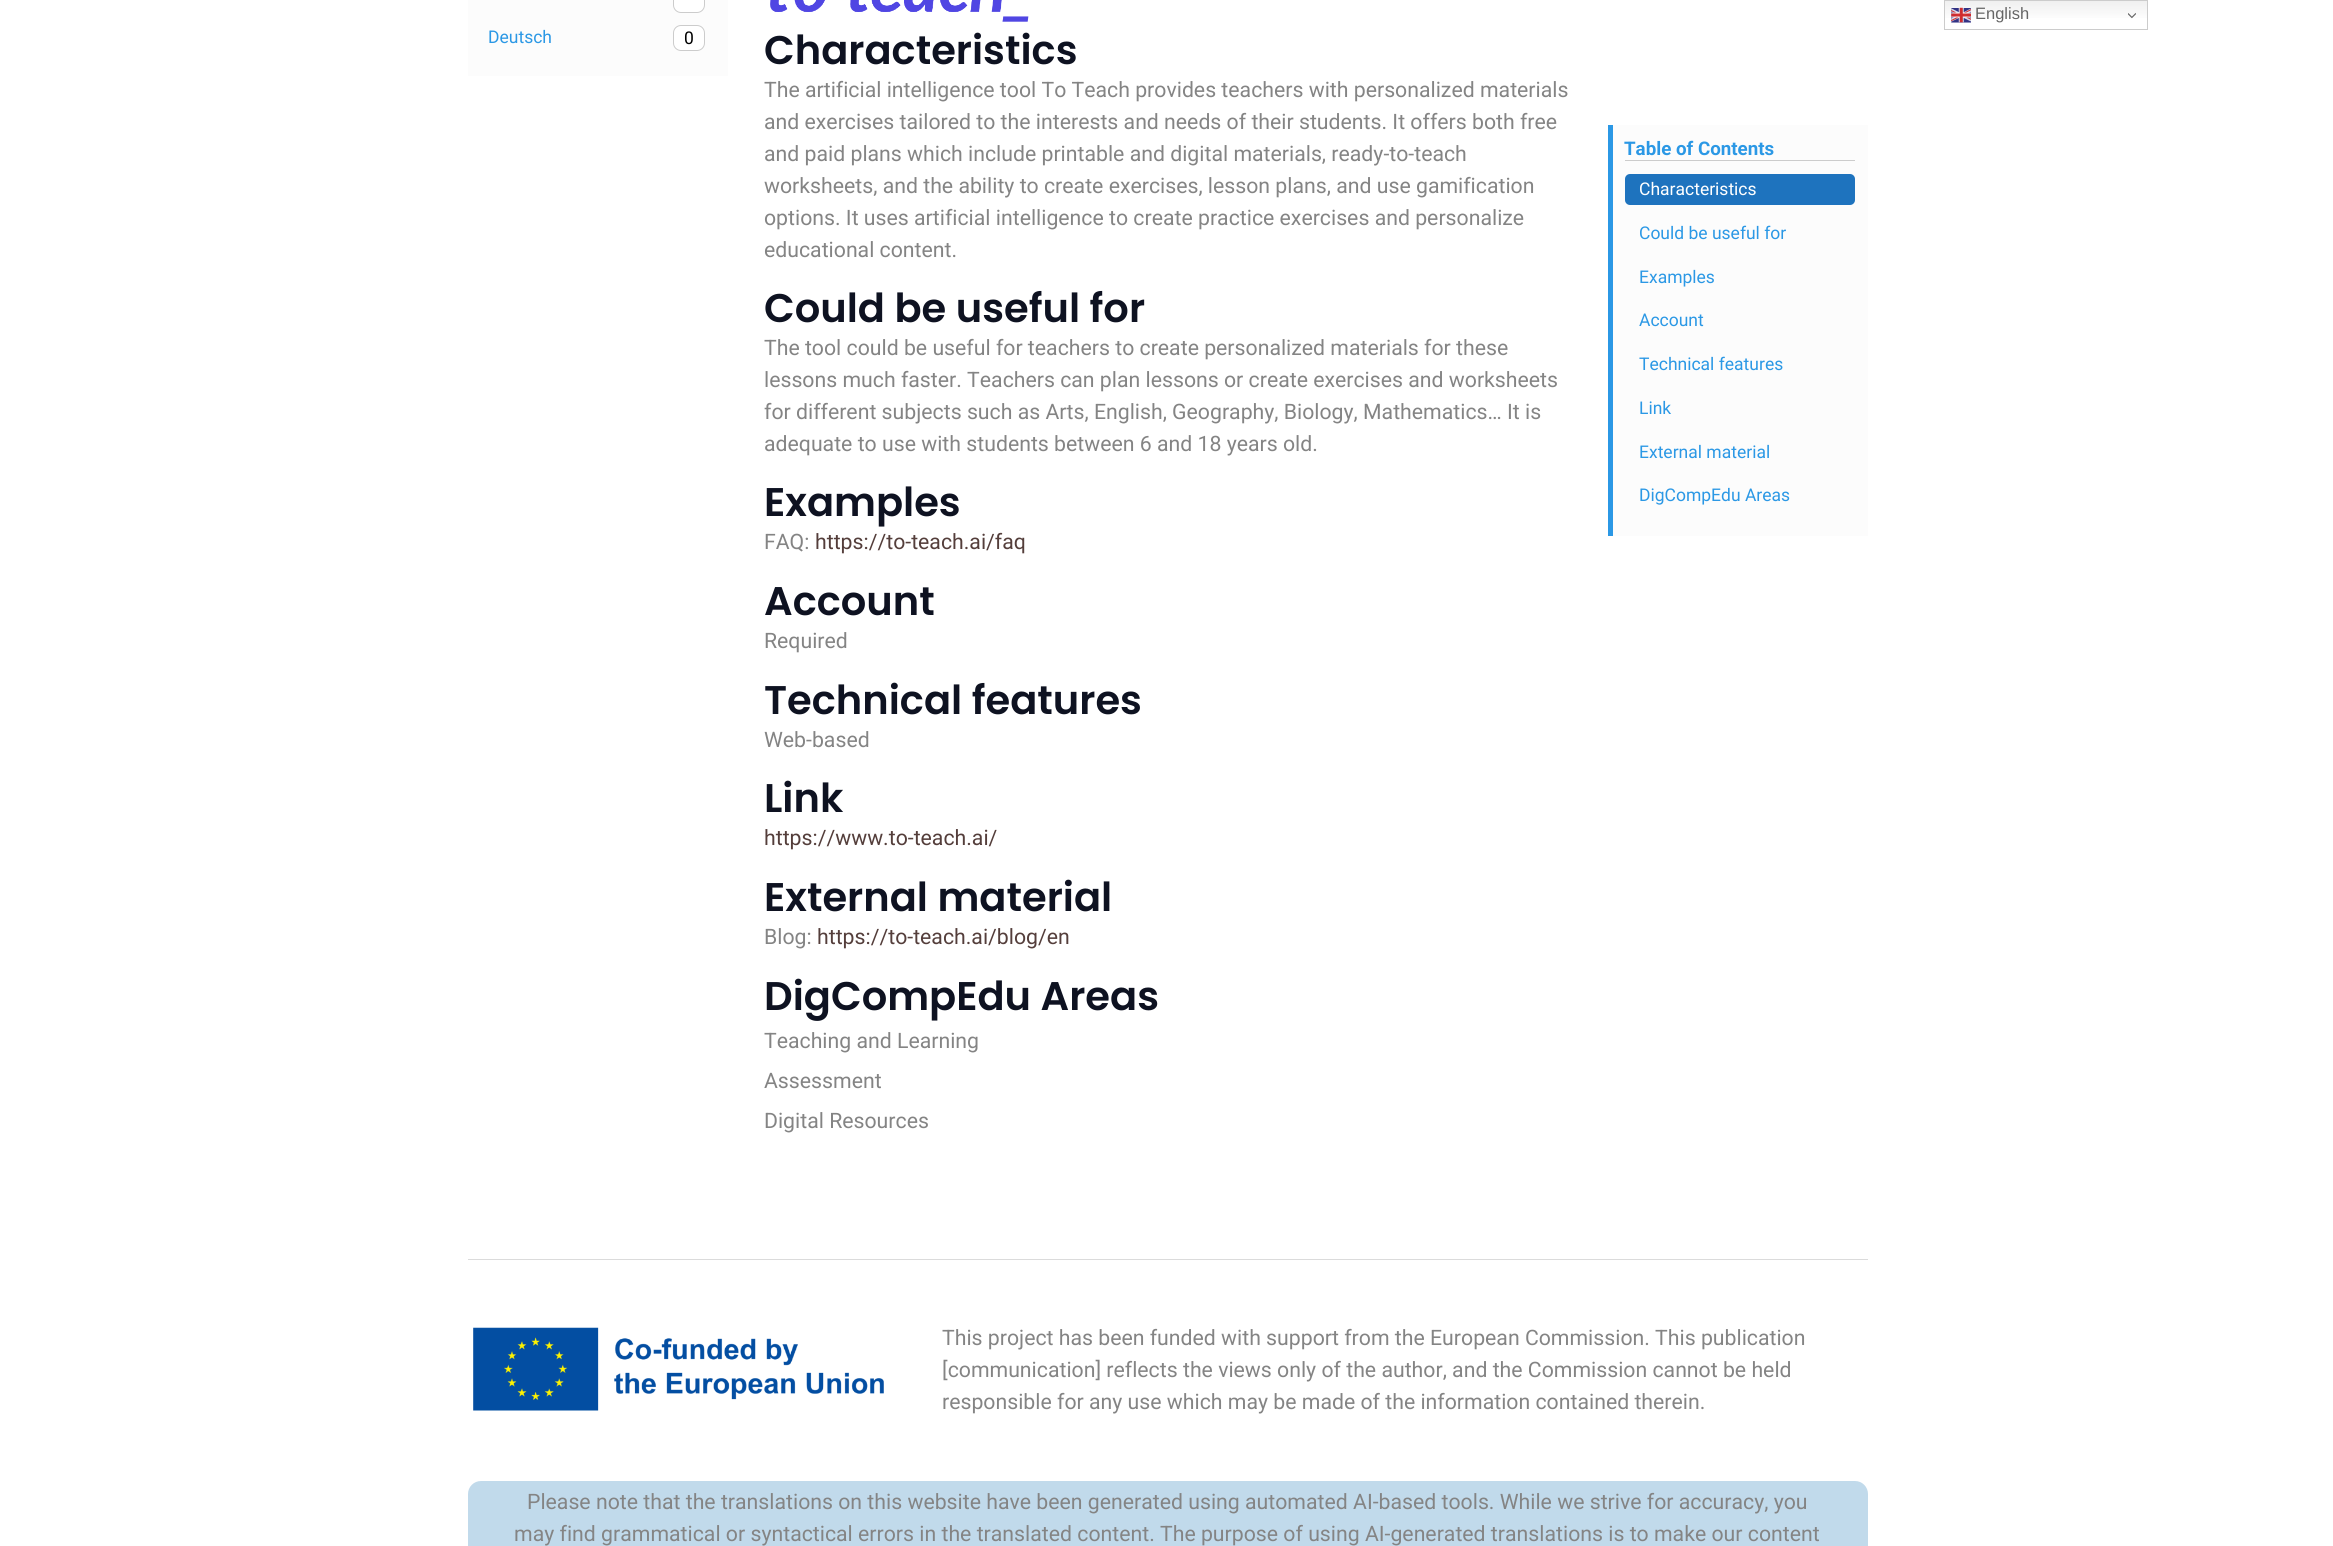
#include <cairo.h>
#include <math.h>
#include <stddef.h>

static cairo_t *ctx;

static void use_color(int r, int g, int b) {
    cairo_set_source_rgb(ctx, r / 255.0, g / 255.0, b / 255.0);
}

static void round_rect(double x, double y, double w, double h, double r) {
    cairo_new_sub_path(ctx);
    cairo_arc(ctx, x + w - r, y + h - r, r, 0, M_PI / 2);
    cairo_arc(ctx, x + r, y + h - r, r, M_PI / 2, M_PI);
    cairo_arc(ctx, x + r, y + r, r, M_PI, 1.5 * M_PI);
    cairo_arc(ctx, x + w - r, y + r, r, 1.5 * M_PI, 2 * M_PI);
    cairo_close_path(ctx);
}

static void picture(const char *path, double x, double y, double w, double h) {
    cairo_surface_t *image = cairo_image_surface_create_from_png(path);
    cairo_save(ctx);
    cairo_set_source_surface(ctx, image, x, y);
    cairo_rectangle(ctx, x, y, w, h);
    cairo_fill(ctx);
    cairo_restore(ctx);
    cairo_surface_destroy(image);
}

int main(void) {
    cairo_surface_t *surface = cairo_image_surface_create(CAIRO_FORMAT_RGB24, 2333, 1546);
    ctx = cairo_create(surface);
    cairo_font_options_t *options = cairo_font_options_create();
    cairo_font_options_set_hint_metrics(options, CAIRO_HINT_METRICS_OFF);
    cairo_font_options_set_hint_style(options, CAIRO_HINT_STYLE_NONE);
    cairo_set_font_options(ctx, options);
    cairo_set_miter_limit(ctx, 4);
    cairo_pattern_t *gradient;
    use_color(255, 255, 255);
    cairo_paint(ctx);
    gradient = cairo_pattern_create_linear(2046, 0, 2046, 30);
    cairo_pattern_add_color_stop_rgba(gradient, 0, 0.937, 0.937, 0.937, 1);
    cairo_pattern_add_color_stop_rgba(gradient, 0.7, 1, 1, 1, 1);
    cairo_set_source(ctx, gradient);
    cairo_pattern_destroy(gradient);
    cairo_rectangle(ctx, 1945, 1, 202, 17);
    cairo_fill(ctx);
    cairo_rectangle(ctx, 1944.5, 0.5, 203, 29);
    use_color(204, 204, 204);
    cairo_set_line_width(ctx, 1);
    cairo_stroke(ctx);
    picture("img1.png", 1951, 7, 20, 16);
    cairo_select_font_face(ctx, "Liberation Sans", CAIRO_FONT_SLANT_NORMAL, CAIRO_FONT_WEIGHT_NORMAL);
    cairo_set_font_size(ctx, 16.5);
    use_color(102, 102, 102);
    cairo_move_to(ctx, 1975, 19);
    cairo_show_text(ctx, "English");
    picture("img2.png", 2128, 13, 8, 6);
    use_color(252, 252, 252);
    cairo_rectangle(ctx, 468, 0, 260, 76);
    cairo_fill(ctx);
    use_color(255, 255, 255);
    round_rect(673.5, -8.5, 31, 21, 7.5);
    cairo_fill_preserve(ctx);
    use_color(204, 204, 204);
    cairo_stroke(ctx);
    cairo_select_font_face(ctx, "Roboto", CAIRO_FONT_SLANT_NORMAL, CAIRO_FONT_WEIGHT_NORMAL);
    cairo_set_font_size(ctx, 17.5);
    use_color(43, 152, 229);
    cairo_move_to(ctx, 488, 43);
    cairo_show_text(ctx, "Deutsch");
    use_color(255, 255, 255);
    round_rect(673.5, 25.5, 31, 25, 7.5);
    cairo_fill_preserve(ctx);
    use_color(204, 204, 204);
    cairo_stroke(ctx);
    use_color(0, 0, 0);
    cairo_move_to(ctx, 684, 44);
    cairo_show_text(ctx, "0");
    picture("img3.png", 770, 0, 259, 22);
    cairo_select_font_face(ctx, "Poppins SemiBold", CAIRO_FONT_SLANT_NORMAL, CAIRO_FONT_WEIGHT_NORMAL);
    cairo_set_font_size(ctx, 40);
    use_color(14, 18, 33);
    cairo_move_to(ctx, 764, 64);
    cairo_show_text(ctx, "Characteristics");
    cairo_select_font_face(ctx, "Roboto", CAIRO_FONT_SLANT_NORMAL, CAIRO_FONT_WEIGHT_NORMAL);
    cairo_set_font_size(ctx, 21.25);
    use_color(132, 132, 132);
    cairo_move_to(ctx, 764, 97);
    cairo_show_text(ctx, "The artificial intelligence tool To Teach provides teachers with personalized materials");
    cairo_move_to(ctx, 764, 129);
    cairo_show_text(ctx, "and exercises tailored to the interests and needs of their students. It offers both free");
    cairo_move_to(ctx, 764, 161);
    cairo_show_text(ctx, "and paid plans which include printable and digital materials, ready-to-teach");
    cairo_move_to(ctx, 764, 193);
    cairo_show_text(ctx, "worksheets, and the ability to create exercises, lesson plans, and use gamification");
    cairo_move_to(ctx, 764, 225);
    cairo_show_text(ctx, "options. It uses artificial intelligence to create practice exercises and personalize");
    cairo_move_to(ctx, 764, 257);
    cairo_show_text(ctx, "educational content.");
    cairo_select_font_face(ctx, "Poppins SemiBold", CAIRO_FONT_SLANT_NORMAL, CAIRO_FONT_WEIGHT_NORMAL);
    cairo_set_font_size(ctx, 40);
    use_color(14, 18, 33);
    cairo_move_to(ctx, 764, 322);
    cairo_show_text(ctx, "Could be useful for");
    cairo_select_font_face(ctx, "Roboto", CAIRO_FONT_SLANT_NORMAL, CAIRO_FONT_WEIGHT_NORMAL);
    cairo_set_font_size(ctx, 21.25);
    use_color(132, 132, 132);
    cairo_move_to(ctx, 764, 355);
    cairo_show_text(ctx, "The tool could be useful for teachers to create personalized materials for these");
    cairo_move_to(ctx, 764, 387);
    cairo_show_text(ctx, "lessons much faster. Teachers can plan lessons or create exercises and worksheets");
    cairo_move_to(ctx, 764, 419);
    cairo_show_text(ctx, "for different subjects such as Arts, English, Geography, Biology, Mathematics… It is");
    cairo_move_to(ctx, 764, 451);
    cairo_show_text(ctx, "adequate to use with students between 6 and 18 years old.");
    cairo_select_font_face(ctx, "Poppins SemiBold", CAIRO_FONT_SLANT_NORMAL, CAIRO_FONT_WEIGHT_NORMAL);
    cairo_set_font_size(ctx, 40);
    use_color(14, 18, 33);
    cairo_move_to(ctx, 764, 516);
    cairo_show_text(ctx, "Examples");
    cairo_select_font_face(ctx, "Roboto", CAIRO_FONT_SLANT_NORMAL, CAIRO_FONT_WEIGHT_NORMAL);
    cairo_set_font_size(ctx, 21.25);
    use_color(132, 132, 132);
    cairo_move_to(ctx, 764, 549);
    cairo_show_text(ctx, "FAQ:");
    use_color(84, 62, 59);
    cairo_move_to(ctx, 815, 549);
    cairo_show_text(ctx, "https://to-teach.ai/faq");
    cairo_select_font_face(ctx, "Poppins SemiBold", CAIRO_FONT_SLANT_NORMAL, CAIRO_FONT_WEIGHT_NORMAL);
    cairo_set_font_size(ctx, 40);
    use_color(14, 18, 33);
    cairo_move_to(ctx, 764, 615);
    cairo_show_text(ctx, "Account");
    cairo_select_font_face(ctx, "Roboto", CAIRO_FONT_SLANT_NORMAL, CAIRO_FONT_WEIGHT_NORMAL);
    cairo_set_font_size(ctx, 21.25);
    use_color(132, 132, 132);
    cairo_move_to(ctx, 764, 648);
    cairo_show_text(ctx, "Required");
    cairo_select_font_face(ctx, "Poppins SemiBold", CAIRO_FONT_SLANT_NORMAL, CAIRO_FONT_WEIGHT_NORMAL);
    cairo_set_font_size(ctx, 40);
    use_color(14, 18, 33);
    cairo_move_to(ctx, 764, 714);
    cairo_show_text(ctx, "Technical features");
    cairo_select_font_face(ctx, "Roboto", CAIRO_FONT_SLANT_NORMAL, CAIRO_FONT_WEIGHT_NORMAL);
    cairo_set_font_size(ctx, 21.25);
    use_color(132, 132, 132);
    cairo_move_to(ctx, 764, 747);
    cairo_show_text(ctx, "Web-based");
    cairo_select_font_face(ctx, "Poppins SemiBold", CAIRO_FONT_SLANT_NORMAL, CAIRO_FONT_WEIGHT_NORMAL);
    cairo_set_font_size(ctx, 40);
    use_color(14, 18, 33);
    cairo_move_to(ctx, 764, 812);
    cairo_show_text(ctx, "Link");
    cairo_select_font_face(ctx, "Roboto", CAIRO_FONT_SLANT_NORMAL, CAIRO_FONT_WEIGHT_NORMAL);
    cairo_set_font_size(ctx, 21.25);
    use_color(84, 62, 59);
    cairo_move_to(ctx, 764, 845);
    cairo_show_text(ctx, "https://www.to-teach.ai/");
    cairo_select_font_face(ctx, "Poppins SemiBold", CAIRO_FONT_SLANT_NORMAL, CAIRO_FONT_WEIGHT_NORMAL);
    cairo_set_font_size(ctx, 40);
    use_color(14, 18, 33);
    cairo_move_to(ctx, 764, 911);
    cairo_show_text(ctx, "External material");
    cairo_select_font_face(ctx, "Roboto", CAIRO_FONT_SLANT_NORMAL, CAIRO_FONT_WEIGHT_NORMAL);
    cairo_set_font_size(ctx, 21.25);
    use_color(132, 132, 132);
    cairo_move_to(ctx, 764, 944);
    cairo_show_text(ctx, "Blog:");
    use_color(84, 62, 59);
    cairo_move_to(ctx, 817, 944);
    cairo_show_text(ctx, "https://to-teach.ai/blog/en");
    cairo_select_font_face(ctx, "Poppins SemiBold", CAIRO_FONT_SLANT_NORMAL, CAIRO_FONT_WEIGHT_NORMAL);
    cairo_set_font_size(ctx, 40);
    use_color(14, 18, 33);
    cairo_move_to(ctx, 764, 1010);
    cairo_show_text(ctx, "DigCompEdu Areas");
    cairo_select_font_face(ctx, "Roboto", CAIRO_FONT_SLANT_NORMAL, CAIRO_FONT_WEIGHT_NORMAL);
    cairo_set_font_size(ctx, 21.25);
    use_color(132, 132, 132);
    cairo_move_to(ctx, 764, 1048);
    cairo_show_text(ctx, "Teaching and Learning");
    cairo_move_to(ctx, 764, 1088);
    cairo_show_text(ctx, "Assessment");
    cairo_move_to(ctx, 764, 1128);
    cairo_show_text(ctx, "Digital Resources");
    use_color(252, 252, 252);
    cairo_rectangle(ctx, 1613, 125, 255, 411);
    cairo_fill(ctx);
    use_color(43, 152, 229);
    cairo_rectangle(ctx, 1608, 125, 5, 411);
    cairo_fill(ctx);
    use_color(204, 204, 204);
    cairo_rectangle(ctx, 1625, 160, 230, 1);
    cairo_fill(ctx);
    cairo_select_font_face(ctx, "Roboto", CAIRO_FONT_SLANT_NORMAL, CAIRO_FONT_WEIGHT_BOLD);
    cairo_set_font_size(ctx, 18.75);
    use_color(43, 152, 229);
    cairo_move_to(ctx, 1624, 155);
    cairo_show_text(ctx, "Table of Contents");
    use_color(30, 115, 190);
    round_rect(1625, 174, 230, 31, 5);
    cairo_fill(ctx);
    cairo_select_font_face(ctx, "Roboto", CAIRO_FONT_SLANT_NORMAL, CAIRO_FONT_WEIGHT_NORMAL);
    cairo_set_font_size(ctx, 17.5);
    use_color(255, 255, 255);
    cairo_move_to(ctx, 1639, 195);
    cairo_show_text(ctx, "Characteristics");
    use_color(43, 152, 229);
    cairo_move_to(ctx, 1639, 239);
    cairo_show_text(ctx, "Could be useful for");
    cairo_move_to(ctx, 1639, 283);
    cairo_show_text(ctx, "Examples");
    cairo_move_to(ctx, 1639, 326);
    cairo_show_text(ctx, "Account");
    cairo_move_to(ctx, 1639, 370);
    cairo_show_text(ctx, "Technical features");
    cairo_move_to(ctx, 1639, 414);
    cairo_show_text(ctx, "Link");
    cairo_move_to(ctx, 1639, 458);
    cairo_show_text(ctx, "External material");
    cairo_move_to(ctx, 1639, 501);
    cairo_show_text(ctx, "DigCompEdu Areas");
    use_color(219, 219, 219);
    cairo_rectangle(ctx, 468, 1259, 1400, 1);
    cairo_fill(ctx);
    picture("img4.png", 473, 1327, 411, 84);
    cairo_set_font_size(ctx, 21.25);
    use_color(132, 132, 132);
    cairo_move_to(ctx, 942, 1345);
    cairo_show_text(ctx, "This project has been funded with support from the European Commission. This publication");
    cairo_move_to(ctx, 942, 1377);
    cairo_show_text(ctx, "[communication] reflects the views only of the author, and the Commission cannot be held");
    cairo_move_to(ctx, 942, 1409);
    cairo_show_text(ctx, "responsible for any use which may be made of the information contained therein.");
    use_color(193, 218, 235);
    round_rect(468, 1481, 1400, 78, 13);
    cairo_fill(ctx);
    use_color(132, 132, 132);
    cairo_move_to(ctx, 527, 1509);
    cairo_show_text(ctx, "Please note that the translations on this website have been generated using automated AI-based tools. While we strive for accuracy, you");
    cairo_move_to(ctx, 514, 1541);
    cairo_show_text(ctx, "may find grammatical or syntactical errors in the translated content. The purpose of using AI-generated translations is to make our content");
    cairo_surface_write_to_png(surface, "result.png");
    cairo_font_options_destroy(options);
    cairo_destroy(ctx);
    cairo_surface_destroy(surface);
    return 0;
}
